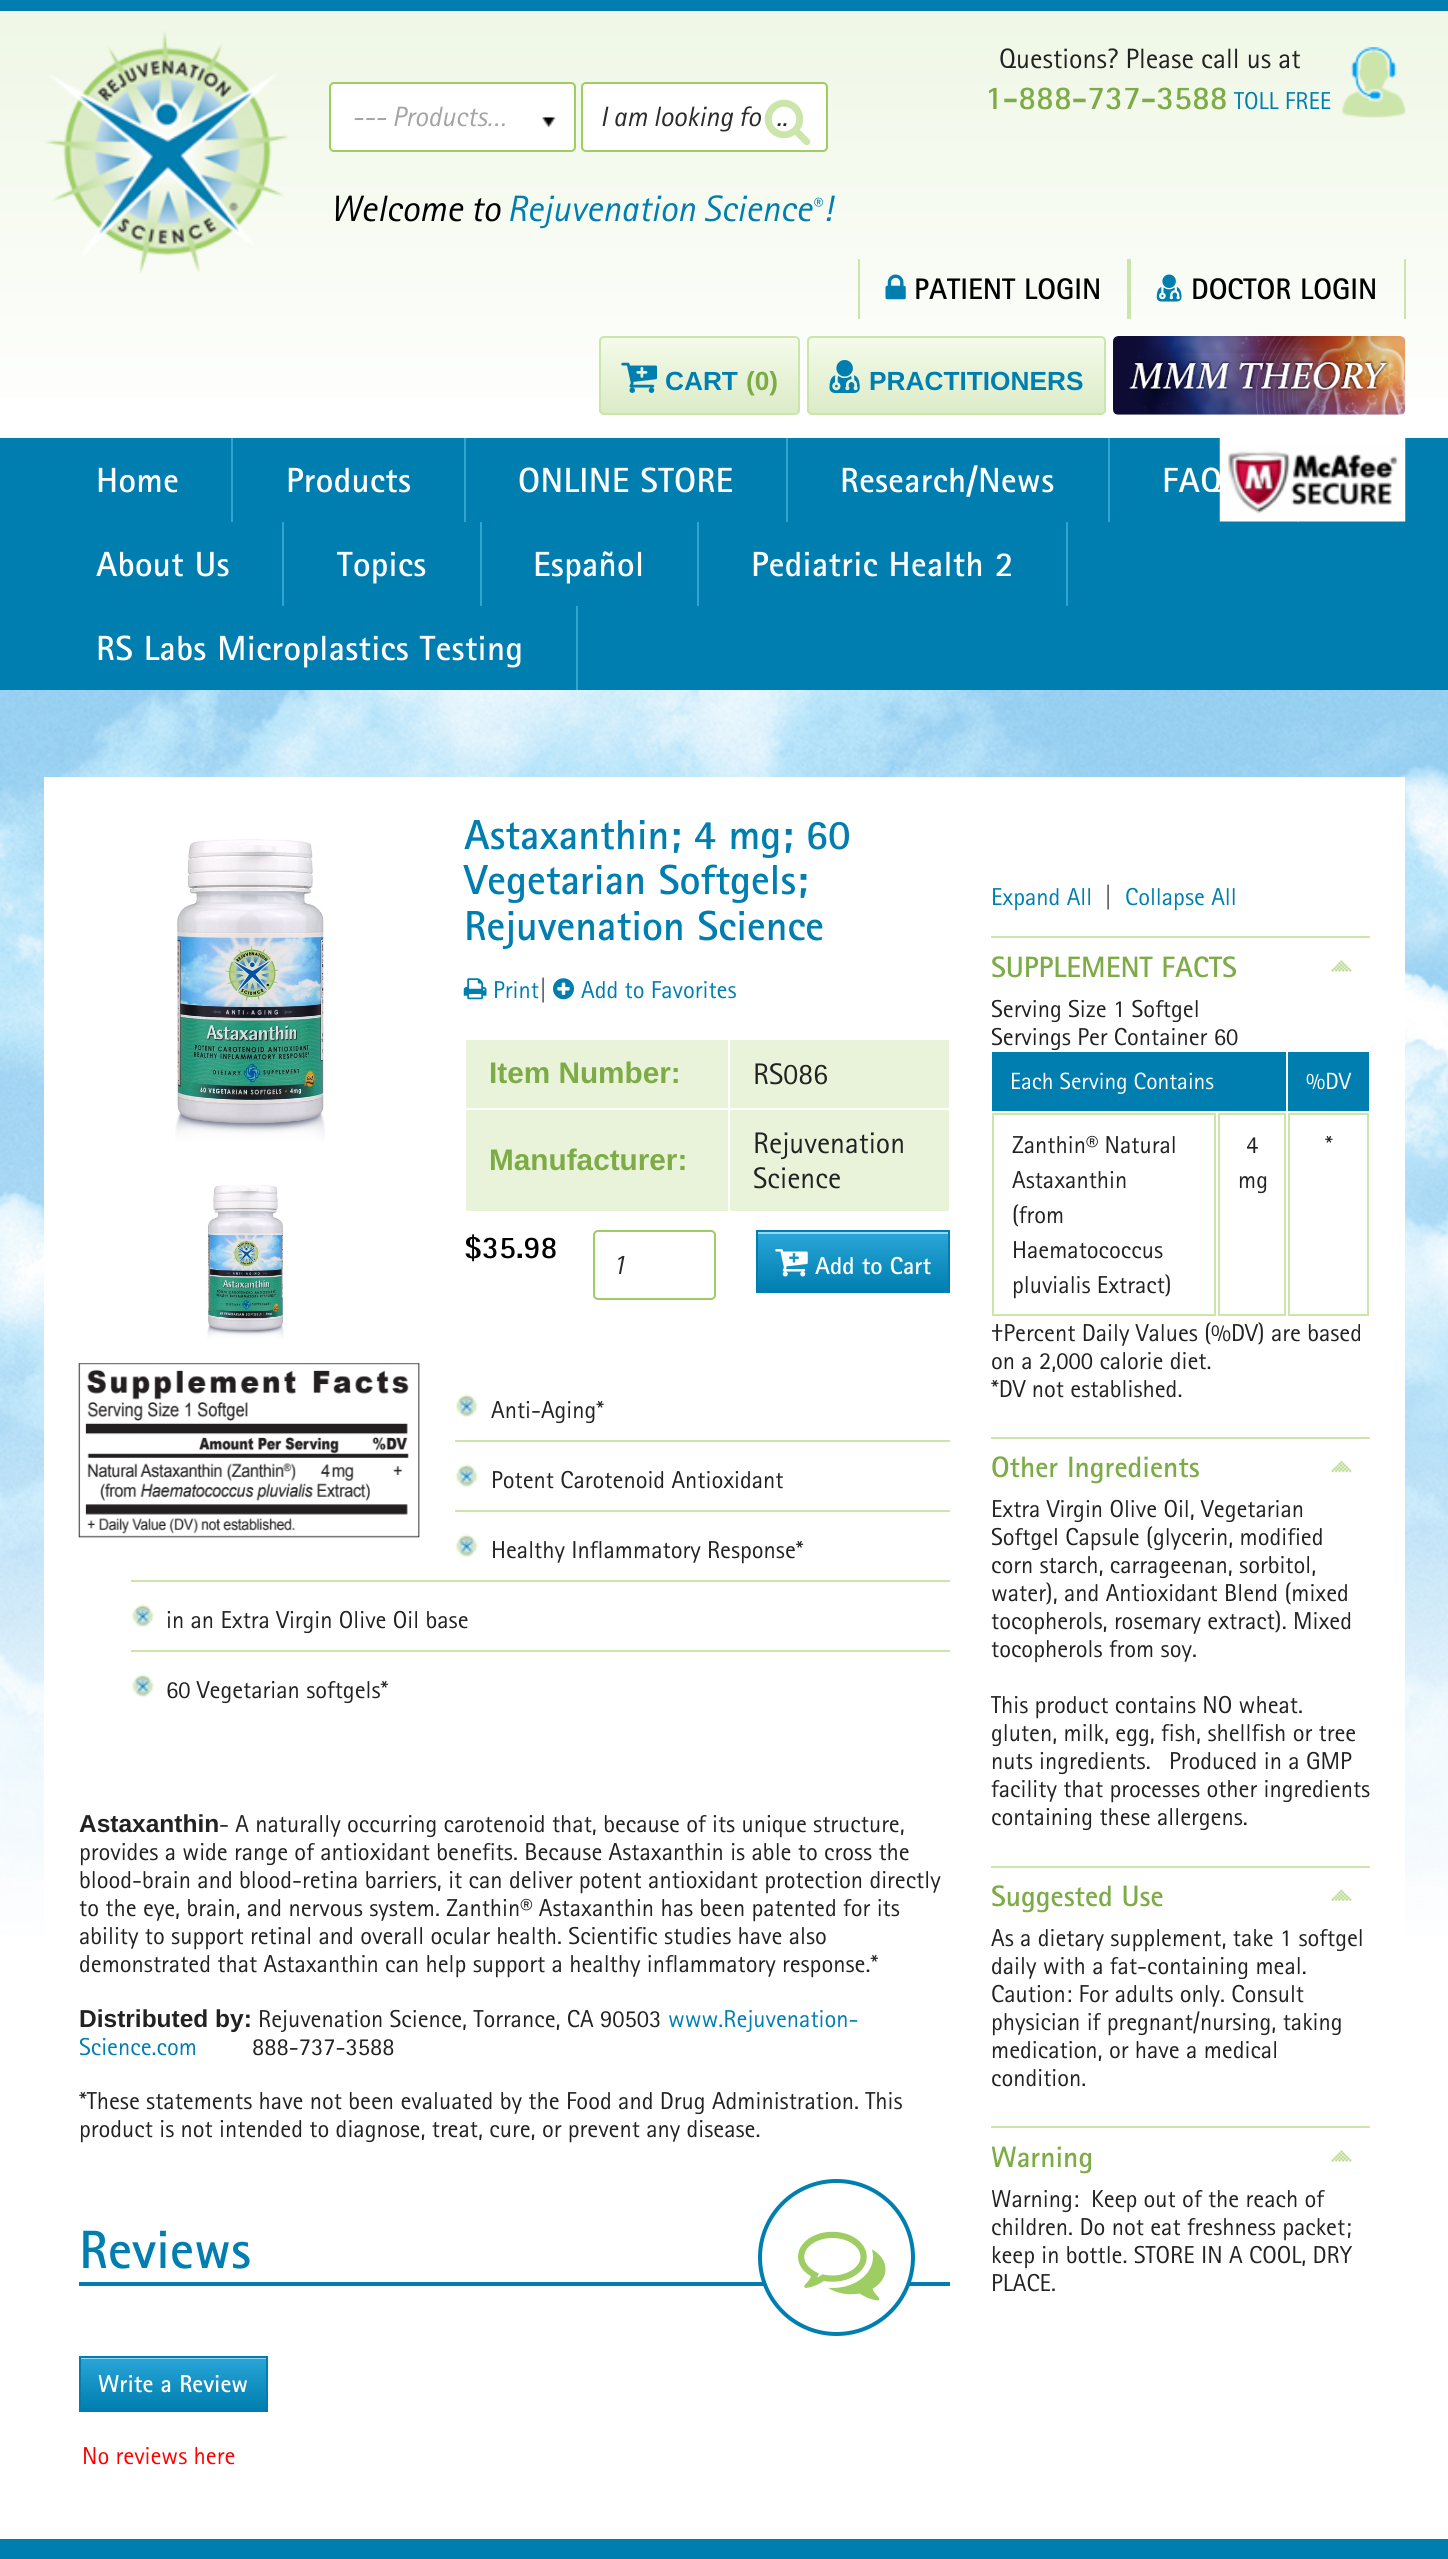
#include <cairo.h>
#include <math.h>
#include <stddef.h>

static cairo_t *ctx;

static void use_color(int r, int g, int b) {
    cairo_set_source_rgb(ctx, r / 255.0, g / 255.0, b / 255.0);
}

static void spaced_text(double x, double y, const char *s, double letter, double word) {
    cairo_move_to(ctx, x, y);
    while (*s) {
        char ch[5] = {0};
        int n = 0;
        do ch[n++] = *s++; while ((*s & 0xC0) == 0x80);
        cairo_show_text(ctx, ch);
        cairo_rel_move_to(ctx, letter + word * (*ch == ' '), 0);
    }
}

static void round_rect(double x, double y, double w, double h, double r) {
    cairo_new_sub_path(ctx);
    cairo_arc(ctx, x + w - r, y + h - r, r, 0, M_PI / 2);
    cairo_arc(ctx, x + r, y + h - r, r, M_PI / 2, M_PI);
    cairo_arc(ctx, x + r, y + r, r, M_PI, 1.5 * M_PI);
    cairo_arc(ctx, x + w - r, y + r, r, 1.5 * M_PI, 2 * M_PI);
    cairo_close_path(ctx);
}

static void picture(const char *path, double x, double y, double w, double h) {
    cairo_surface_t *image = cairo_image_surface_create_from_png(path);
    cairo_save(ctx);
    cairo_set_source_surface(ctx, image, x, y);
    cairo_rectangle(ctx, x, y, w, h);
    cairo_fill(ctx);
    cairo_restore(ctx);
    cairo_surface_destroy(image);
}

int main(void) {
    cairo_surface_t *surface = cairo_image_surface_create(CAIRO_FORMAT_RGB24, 1448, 2559);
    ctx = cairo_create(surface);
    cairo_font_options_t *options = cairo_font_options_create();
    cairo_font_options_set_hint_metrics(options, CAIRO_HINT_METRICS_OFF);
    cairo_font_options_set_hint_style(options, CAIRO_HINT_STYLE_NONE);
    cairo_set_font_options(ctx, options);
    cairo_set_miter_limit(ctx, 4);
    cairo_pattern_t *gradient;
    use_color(255, 255, 255);
    cairo_paint(ctx);
    use_color(0, 126, 176);
    cairo_rectangle(ctx, 0, 0, 1448, 11);
    cairo_fill(ctx);
    gradient = cairo_pattern_create_linear(725, 12, 725, 438);
    cairo_pattern_add_color_stop_rgba(gradient, 0, 0.937, 0.969, 0.898, 1);
    cairo_pattern_add_color_stop_rgba(gradient, 1, 1, 1, 1, 1);
    cairo_set_source(ctx, gradient);
    cairo_pattern_destroy(gradient);
    cairo_rectangle(ctx, 0, 13, 1448, 384);
    cairo_fill(ctx);
    picture("img1.png", 45, 31, 244, 243);
    cairo_select_font_face(ctx, "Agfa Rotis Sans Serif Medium", CAIRO_FONT_SLANT_NORMAL, CAIRO_FONT_WEIGHT_NORMAL);
    cairo_set_font_size(ctx, 28);
    use_color(34, 34, 34);
    cairo_move_to(ctx, 999, 68);
    cairo_show_text(ctx, "Questions? Please call us at");
    picture("img2.png", 1342, 47, 64, 71);
    cairo_select_font_face(ctx, "Agfa Rotis Sans Serif", CAIRO_FONT_SLANT_NORMAL, CAIRO_FONT_WEIGHT_BOLD);
    cairo_set_font_size(ctx, 33.25);
    use_color(125, 171, 70);
    cairo_move_to(ctx, 985, 109);
    cairo_show_text(ctx, "1-888-737-3588");
    cairo_select_font_face(ctx, "Agfa Rotis Sans Serif Medium", CAIRO_FONT_SLANT_NORMAL, CAIRO_FONT_WEIGHT_NORMAL);
    cairo_set_font_size(ctx, 24.5);
    use_color(0, 126, 176);
    cairo_move_to(ctx, 1234, 109);
    cairo_show_text(ctx, "TOLL FREE");
    use_color(255, 255, 255);
    round_rect(330, 83, 245, 68, 4);
    cairo_fill_preserve(ctx);
    use_color(157, 205, 99);
    cairo_stroke(ctx);
    cairo_select_font_face(ctx, "Agfa Rotis Sans Serif Medium", CAIRO_FONT_SLANT_ITALIC, CAIRO_FONT_WEIGHT_NORMAL);
    cairo_set_font_size(ctx, 28);
    use_color(164, 164, 164);
    cairo_move_to(ctx, 352, 126);
    cairo_show_text(ctx, "--- Products…");
    picture("img3.png", 542, 117, 14, 11);
    use_color(255, 255, 255);
    round_rect(582, 83, 245, 68, 4);
    cairo_fill_preserve(ctx);
    use_color(157, 205, 99);
    cairo_stroke(ctx);
    use_color(43, 43, 43);
    cairo_move_to(ctx, 600, 126);
    cairo_show_text(ctx, "I am looking fo");
    cairo_move_to(ctx, 776, 126);
    cairo_show_text(ctx, "..");
    picture("img4.png", 764, 99, 47, 47);
    cairo_set_font_size(ctx, 36.75);
    use_color(0, 0, 0);
    cairo_move_to(ctx, 330, 221);
    cairo_show_text(ctx, "Welcome to");
    use_color(0, 126, 176);
    cairo_move_to(ctx, 507, 221);
    cairo_show_text(ctx, "Rejuvenation Science");
    cairo_set_font_size(ctx, 19);
    cairo_move_to(ctx, 812, 211);
    cairo_show_text(ctx, "®");
    cairo_set_font_size(ctx, 36.75);
    cairo_move_to(ctx, 822, 221);
    cairo_show_text(ctx, "!");
    use_color(203, 229, 171);
    cairo_rectangle(ctx, 1127, 259, 4, 60);
    cairo_fill(ctx);
    cairo_rectangle(ctx, 858, 259, 2, 60);
    cairo_fill(ctx);
    picture("img5.png", 885, 274, 21, 26);
    cairo_select_font_face(ctx, "Agfa Rotis Sans Serif", CAIRO_FONT_SLANT_NORMAL, CAIRO_FONT_WEIGHT_BOLD);
    cairo_set_font_size(ctx, 29.75);
    use_color(0, 0, 0);
    cairo_move_to(ctx, 914, 299);
    cairo_show_text(ctx, "PATIENT LOGIN");
    use_color(203, 229, 171);
    cairo_rectangle(ctx, 1404, 259, 2, 60);
    cairo_fill(ctx);
    picture("img6.png", 1156, 274, 26, 28);
    use_color(0, 0, 0);
    cairo_move_to(ctx, 1191, 299);
    cairo_show_text(ctx, "DOCTOR LOGIN");
    cairo_save(ctx);
    round_rect(599, 336, 201, 79, 5);
    cairo_clip(ctx);
    gradient = cairo_pattern_create_linear(699, 338, 699, 413);
    cairo_pattern_add_color_stop_rgba(gradient, 0, 0.957, 0.984, 0.918, 1);
    cairo_pattern_add_color_stop_rgba(gradient, 1, 0.859, 0.922, 0.78, 1);
    cairo_set_source(ctx, gradient);
    cairo_pattern_destroy(gradient);
    cairo_rectangle(ctx, 599, 338, 201, 75);
    cairo_fill(ctx);
    cairo_restore(ctx);
    round_rect(600, 337, 199, 77, 4);
    use_color(203, 229, 171);
    cairo_stroke(ctx);
    picture("img7.png", 621, 362, 36, 31);
    cairo_select_font_face(ctx, "Liberation Sans", CAIRO_FONT_SLANT_NORMAL, CAIRO_FONT_WEIGHT_BOLD);
    cairo_set_font_size(ctx, 26.25);
    use_color(0, 126, 176);
    cairo_move_to(ctx, 665, 390);
    cairo_show_text(ctx, "CART");
    use_color(125, 171, 70);
    cairo_move_to(ctx, 746, 390);
    cairo_show_text(ctx, "(0)");
    cairo_save(ctx);
    round_rect(807, 336, 299, 79, 5);
    cairo_clip(ctx);
    gradient = cairo_pattern_create_linear(956, 338, 956, 413);
    cairo_pattern_add_color_stop_rgba(gradient, 0, 0.957, 0.984, 0.918, 1);
    cairo_pattern_add_color_stop_rgba(gradient, 1, 0.859, 0.922, 0.78, 1);
    cairo_set_source(ctx, gradient);
    cairo_pattern_destroy(gradient);
    cairo_rectangle(ctx, 807, 338, 299, 75);
    cairo_fill(ctx);
    cairo_restore(ctx);
    round_rect(808, 337, 297, 77, 4);
    use_color(203, 229, 171);
    cairo_stroke(ctx);
    picture("img8.png", 829, 360, 31, 33);
    use_color(0, 126, 176);
    cairo_move_to(ctx, 869, 390);
    cairo_show_text(ctx, "PRACTITIONERS");
    picture("img9.png", 1113, 336, 293, 79);
    cairo_rectangle(ctx, 0, 438, 1448, 252);
    cairo_fill(ctx);
    use_color(49, 164, 210);
    cairo_rectangle(ctx, 231, 438, 2, 84);
    cairo_fill(ctx);
    cairo_select_font_face(ctx, "Agfa Rotis Sans Serif", CAIRO_FONT_SLANT_NORMAL, CAIRO_FONT_WEIGHT_BOLD);
    cairo_set_font_size(ctx, 35);
    use_color(255, 255, 255);
    spaced_text(96, 492, "Home", 0.35, 0);
    use_color(49, 164, 210);
    cairo_rectangle(ctx, 464, 438, 2, 84);
    cairo_fill(ctx);
    use_color(255, 255, 255);
    spaced_text(286, 492, "Products", 0.35, 0);
    use_color(49, 164, 210);
    cairo_rectangle(ctx, 786, 438, 2, 84);
    cairo_fill(ctx);
    use_color(255, 255, 255);
    spaced_text(518, 492, "ONLINE STORE", 0.35, 0);
    use_color(49, 164, 210);
    cairo_rectangle(ctx, 1108, 438, 2, 84);
    cairo_fill(ctx);
    use_color(255, 255, 255);
    spaced_text(840, 492, "Research/News", 0.35, 0);
    use_color(49, 164, 210);
    cairo_rectangle(ctx, 1297, 521, 2, 1);
    cairo_fill(ctx);
    use_color(255, 255, 255);
    spaced_text(1162, 492, "FAQ", 0.35, 0);
    use_color(49, 164, 210);
    cairo_rectangle(ctx, 282, 522, 2, 84);
    cairo_fill(ctx);
    use_color(255, 255, 255);
    spaced_text(96, 576, "About Us", 0.35, 0);
    use_color(49, 164, 210);
    cairo_rectangle(ctx, 480, 522, 2, 84);
    cairo_fill(ctx);
    use_color(255, 255, 255);
    spaced_text(337, 576, "Topics", 0.35, 0);
    use_color(49, 164, 210);
    cairo_rectangle(ctx, 697, 522, 2, 84);
    cairo_fill(ctx);
    use_color(255, 255, 255);
    spaced_text(533, 576, "Español", 0.35, 0);
    use_color(49, 164, 210);
    cairo_rectangle(ctx, 1066, 522, 2, 84);
    cairo_fill(ctx);
    use_color(255, 255, 255);
    spaced_text(751, 576, "Pediatric Health 2", 0.35, 0);
    use_color(49, 164, 210);
    cairo_rectangle(ctx, 576, 606, 2, 84);
    cairo_fill(ctx);
    use_color(255, 255, 255);
    spaced_text(96, 660, "RS Labs Microplastics Testing", 0.35, 0);
    picture("img10.png", 1219, 438, 187, 84);
    picture("img11.png", 0, 690, 1448, 1245);
    cairo_rectangle(ctx, 44, 777, 1361, 1158);
    cairo_fill(ctx);
    picture("img12.png", 175, 839, 150, 302);
    picture("img13.png", 207, 1185, 77, 154);
    picture("img14.png", 78, 1363, 342, 175);
    cairo_set_font_size(ctx, 42);
    use_color(0, 126, 176);
    cairo_move_to(ctx, 464, 849);
    cairo_show_text(ctx, "Astaxanthin; 4 mg; 60");
    cairo_move_to(ctx, 464, 894);
    cairo_show_text(ctx, "Vegetarian Softgels;");
    cairo_move_to(ctx, 464, 940);
    cairo_show_text(ctx, "Rejuvenation Science");
    picture("img15.png", 463, 978, 24, 22);
    cairo_select_font_face(ctx, "Agfa Rotis Sans Serif Medium", CAIRO_FONT_SLANT_NORMAL, CAIRO_FONT_WEIGHT_NORMAL);
    cairo_set_font_size(ctx, 24.5);
    cairo_move_to(ctx, 493, 998);
    cairo_show_text(ctx, "Print");
    use_color(34, 34, 34);
    cairo_move_to(ctx, 539, 998);
    cairo_show_text(ctx, "|");
    picture("img16.png", 553, 978, 21, 22);
    use_color(0, 126, 176);
    cairo_move_to(ctx, 581, 998);
    cairo_show_text(ctx, "Add to Favorites");
    use_color(232, 243, 217);
    cairo_rectangle(ctx, 466, 1040, 262, 68);
    cairo_fill(ctx);
    cairo_select_font_face(ctx, "Liberation Sans", CAIRO_FONT_SLANT_NORMAL, CAIRO_FONT_WEIGHT_BOLD);
    cairo_set_font_size(ctx, 29.75);
    use_color(125, 171, 70);
    cairo_move_to(ctx, 489, 1083);
    cairo_show_text(ctx, "Item Number:");
    use_color(232, 243, 217);
    cairo_rectangle(ctx, 730, 1040, 219, 68);
    cairo_fill(ctx);
    cairo_select_font_face(ctx, "Agfa Rotis Sans Serif Medium", CAIRO_FONT_SLANT_NORMAL, CAIRO_FONT_WEIGHT_NORMAL);
    use_color(34, 34, 34);
    cairo_move_to(ctx, 753, 1084);
    cairo_show_text(ctx, "RS086");
    use_color(232, 243, 217);
    cairo_rectangle(ctx, 466, 1110, 262, 101);
    cairo_fill(ctx);
    cairo_select_font_face(ctx, "Liberation Sans", CAIRO_FONT_SLANT_NORMAL, CAIRO_FONT_WEIGHT_BOLD);
    use_color(125, 171, 70);
    cairo_move_to(ctx, 489, 1170);
    cairo_show_text(ctx, "Manufacturer:");
    use_color(232, 243, 217);
    cairo_rectangle(ctx, 730, 1110, 219, 101);
    cairo_fill(ctx);
    cairo_select_font_face(ctx, "Agfa Rotis Sans Serif Medium", CAIRO_FONT_SLANT_NORMAL, CAIRO_FONT_WEIGHT_NORMAL);
    use_color(34, 34, 34);
    cairo_move_to(ctx, 753, 1153);
    cairo_show_text(ctx, "Rejuvenation");
    cairo_move_to(ctx, 753, 1188);
    cairo_show_text(ctx, "Science");
    cairo_select_font_face(ctx, "Agfa Rotis Sans Serif", CAIRO_FONT_SLANT_NORMAL, CAIRO_FONT_WEIGHT_BOLD);
    cairo_set_font_size(ctx, 31.5);
    use_color(0, 0, 0);
    cairo_move_to(ctx, 464, 1258);
    cairo_show_text(ctx, "$35.98");
    round_rect(594, 1231, 121, 68, 4);
    use_color(157, 205, 99);
    cairo_stroke(ctx);
    cairo_select_font_face(ctx, "Agfa Rotis Sans Serif Medium", CAIRO_FONT_SLANT_ITALIC, CAIRO_FONT_WEIGHT_NORMAL);
    cairo_set_font_size(ctx, 28);
    use_color(43, 43, 43);
    cairo_move_to(ctx, 612, 1274);
    cairo_show_text(ctx, "1");
    gradient = cairo_pattern_create_linear(853, 1292, 853, 1232);
    cairo_pattern_add_color_stop_rgba(gradient, 0, 0, 0.494, 0.69, 1);
    cairo_pattern_add_color_stop_rgba(gradient, 1, 0.165, 0.651, 0.847, 1);
    cairo_set_source(ctx, gradient);
    cairo_pattern_destroy(gradient);
    cairo_rectangle(ctx, 758, 1234, 190, 57);
    cairo_fill(ctx);
    use_color(150, 216, 243);
    cairo_rectangle(ctx, 758, 1232, 191, 2);
    cairo_fill(ctx);
    cairo_rectangle(ctx, 757, 1231, 192, 61);
    use_color(0, 126, 176);
    cairo_stroke(ctx);
    picture("img17.png", 775, 1249, 33, 28);
    cairo_select_font_face(ctx, "Agfa Rotis Sans Serif", CAIRO_FONT_SLANT_NORMAL, CAIRO_FONT_WEIGHT_BOLD);
    cairo_set_font_size(ctx, 24.5);
    use_color(255, 255, 255);
    cairo_move_to(ctx, 815, 1274);
    cairo_show_text(ctx, "Add to Cart");
    use_color(203, 229, 171);
    cairo_rectangle(ctx, 455, 1440, 495, 2);
    cairo_fill(ctx);
    picture("img18.png", 455, 1393, 23, 25);
    cairo_select_font_face(ctx, "Agfa Rotis Sans Serif Medium", CAIRO_FONT_SLANT_NORMAL, CAIRO_FONT_WEIGHT_NORMAL);
    use_color(34, 34, 34);
    cairo_move_to(ctx, 491, 1418);
    cairo_show_text(ctx, "Anti-Aging*");
    use_color(203, 229, 171);
    cairo_rectangle(ctx, 455, 1510, 495, 2);
    cairo_fill(ctx);
    picture("img18.png", 455, 1463, 23, 25);
    use_color(34, 34, 34);
    cairo_move_to(ctx, 491, 1488);
    cairo_show_text(ctx, "Potent Carotenoid Antioxidant");
    use_color(203, 229, 171);
    cairo_rectangle(ctx, 131, 1580, 819, 2);
    cairo_fill(ctx);
    picture("img18.png", 455, 1533, 23, 25);
    use_color(34, 34, 34);
    cairo_move_to(ctx, 491, 1558);
    cairo_show_text(ctx, "Healthy Inflammatory Response*");
    use_color(203, 229, 171);
    cairo_rectangle(ctx, 131, 1650, 819, 2);
    cairo_fill(ctx);
    picture("img19.png", 131, 1603, 23, 25);
    use_color(34, 34, 34);
    cairo_move_to(ctx, 166, 1628);
    cairo_show_text(ctx, "in an Extra Virgin Olive Oil base");
    picture("img19.png", 131, 1673, 23, 25);
    cairo_move_to(ctx, 166, 1698);
    cairo_show_text(ctx, "60 Vegetarian softgels*");
    cairo_select_font_face(ctx, "Liberation Sans", CAIRO_FONT_SLANT_NORMAL, CAIRO_FONT_WEIGHT_BOLD);
    cairo_move_to(ctx, 79, 1832);
    cairo_show_text(ctx, "Astaxanthin");
    cairo_select_font_face(ctx, "Agfa Rotis Sans Serif Medium", CAIRO_FONT_SLANT_NORMAL, CAIRO_FONT_WEIGHT_NORMAL);
    cairo_move_to(ctx, 219, 1832);
    cairo_show_text(ctx, "- A naturally occurring carotenoid that, because of its unique structure,");
    cairo_move_to(ctx, 79, 1860);
    cairo_show_text(ctx, "provides a wide range of antioxidant benefits. Because Astaxanthin is able to cross the");
    cairo_move_to(ctx, 79, 1888);
    cairo_show_text(ctx, "blood-brain and blood-retina barriers, it can deliver potent antioxidant protection directly");
    cairo_move_to(ctx, 79, 1916);
    cairo_show_text(ctx, "to the eye, brain, and nervous system. Zanthin® Astaxanthin has been patented for its");
    cairo_move_to(ctx, 79, 1944);
    cairo_show_text(ctx, "ability to support retinal and overall ocular health. Scientific studies have also");
    cairo_move_to(ctx, 79, 1972);
    cairo_show_text(ctx, "demonstrated that Astaxanthin can help support a healthy inflammatory response.*");
    cairo_select_font_face(ctx, "Liberation Sans", CAIRO_FONT_SLANT_NORMAL, CAIRO_FONT_WEIGHT_BOLD);
    cairo_move_to(ctx, 79, 2027);
    cairo_show_text(ctx, "Distributed by:");
    cairo_select_font_face(ctx, "Agfa Rotis Sans Serif Medium", CAIRO_FONT_SLANT_NORMAL, CAIRO_FONT_WEIGHT_NORMAL);
    cairo_move_to(ctx, 258, 2027);
    cairo_show_text(ctx, "Rejuvenation Science, Torrance, CA 90503");
    use_color(0, 126, 176);
    cairo_move_to(ctx, 668, 2027);
    cairo_show_text(ctx, "www.Rejuvenation-");
    cairo_move_to(ctx, 79, 2055);
    cairo_show_text(ctx, "Science.com");
    use_color(34, 34, 34);
    cairo_move_to(ctx, 252, 2055);
    cairo_show_text(ctx, "888-737-3588");
    cairo_move_to(ctx, 79, 2109);
    cairo_show_text(ctx, "*These statements have not been evaluated by the Food and Drug Administration. This");
    cairo_move_to(ctx, 79, 2137);
    cairo_show_text(ctx, "product is not intended to diagnose, treat, cure, or prevent any disease.");
    use_color(0, 126, 176);
    cairo_rectangle(ctx, 79, 2282, 871, 4);
    cairo_fill(ctx);
    cairo_select_font_face(ctx, "Agfa Rotis Sans Serif", CAIRO_FONT_SLANT_NORMAL, CAIRO_FONT_WEIGHT_BOLD);
    cairo_set_font_size(ctx, 54);
    cairo_move_to(ctx, 79, 2268);
    cairo_show_text(ctx, "Reviews");
    use_color(255, 255, 255);
    cairo_new_path(ctx);
    cairo_arc(ctx, 836.5, 2257.5, 76.5, 0, 2 * M_PI);
    cairo_fill_preserve(ctx);
    use_color(0, 126, 176);
    cairo_set_line_width(ctx, 4);
    cairo_stroke(ctx);
    picture("img20.png", 798, 2231, 88, 70);
    gradient = cairo_pattern_create_linear(173, 2410, 173, 2357);
    cairo_pattern_add_color_stop_rgba(gradient, 0, 0, 0.494, 0.69, 1);
    cairo_pattern_add_color_stop_rgba(gradient, 1, 0.165, 0.651, 0.847, 1);
    cairo_set_source(ctx, gradient);
    cairo_pattern_destroy(gradient);
    cairo_rectangle(ctx, 81, 2359, 185, 51);
    cairo_fill(ctx);
    use_color(150, 216, 243);
    cairo_rectangle(ctx, 81, 2358, 185, 1);
    cairo_fill(ctx);
    cairo_rectangle(ctx, 80, 2357, 187, 54);
    use_color(0, 126, 176);
    cairo_set_line_width(ctx, 2);
    cairo_stroke(ctx);
    cairo_set_font_size(ctx, 24.5);
    use_color(255, 255, 255);
    cairo_move_to(ctx, 98, 2392);
    cairo_show_text(ctx, "Write a Review");
    cairo_select_font_face(ctx, "Agfa Rotis Sans Serif Medium", CAIRO_FONT_SLANT_NORMAL, CAIRO_FONT_WEIGHT_NORMAL);
    use_color(255, 0, 0);
    cairo_move_to(ctx, 82, 2464);
    cairo_show_text(ctx, "No reviews here");
    use_color(0, 126, 176);
    cairo_move_to(ctx, 991, 905);
    cairo_show_text(ctx, "Expand All");
    use_color(34, 34, 34);
    cairo_move_to(ctx, 1104, 905);
    cairo_show_text(ctx, "|");
    use_color(0, 126, 176);
    cairo_move_to(ctx, 1125, 905);
    cairo_show_text(ctx, "Collapse All");
    use_color(203, 229, 171);
    cairo_rectangle(ctx, 991, 936, 379, 2);
    cairo_fill(ctx);
    picture("img21.png", 1331, 960, 21, 12);
    cairo_select_font_face(ctx, "Agfa Rotis Sans Serif", CAIRO_FONT_SLANT_NORMAL, CAIRO_FONT_WEIGHT_BOLD);
    cairo_set_font_size(ctx, 29.5);
    use_color(125, 171, 70);
    cairo_move_to(ctx, 991, 977);
    cairo_show_text(ctx, "SUPPLEMENT FACTS");
    cairo_select_font_face(ctx, "Agfa Rotis Sans Serif Medium", CAIRO_FONT_SLANT_NORMAL, CAIRO_FONT_WEIGHT_NORMAL);
    cairo_set_font_size(ctx, 24.5);
    use_color(34, 34, 34);
    cairo_move_to(ctx, 991, 1017);
    cairo_show_text(ctx, "Serving Size 1 Softgel");
    cairo_move_to(ctx, 991, 1045);
    cairo_show_text(ctx, "Servings Per Container 60");
    use_color(0, 126, 176);
    cairo_rectangle(ctx, 992, 1052, 294, 59);
    cairo_fill(ctx);
    cairo_set_font_size(ctx, 23.5);
    use_color(255, 255, 255);
    cairo_move_to(ctx, 1010, 1089);
    cairo_show_text(ctx, "Each Serving Contains");
    use_color(0, 126, 176);
    cairo_rectangle(ctx, 1288, 1052, 81, 59);
    cairo_fill(ctx);
    use_color(255, 255, 255);
    cairo_move_to(ctx, 1306, 1089);
    cairo_show_text(ctx, "%DV");
    cairo_rectangle(ctx, 993, 1114, 222, 201);
    use_color(203, 229, 171);
    cairo_stroke(ctx);
    cairo_set_font_size(ctx, 24.5);
    use_color(34, 34, 34);
    cairo_move_to(ctx, 1012, 1153);
    cairo_show_text(ctx, "Zanthin® Natural");
    cairo_move_to(ctx, 1012, 1188);
    cairo_show_text(ctx, "Astaxanthin");
    cairo_move_to(ctx, 1012, 1223);
    cairo_show_text(ctx, "(from");
    cairo_move_to(ctx, 1012, 1258);
    cairo_show_text(ctx, "Haematococcus");
    cairo_move_to(ctx, 1012, 1293);
    cairo_show_text(ctx, "pluvialis Extract)");
    cairo_rectangle(ctx, 1219, 1114, 66, 201);
    use_color(203, 229, 171);
    cairo_stroke(ctx);
    use_color(34, 34, 34);
    cairo_move_to(ctx, 1246, 1153);
    cairo_show_text(ctx, "4");
    cairo_move_to(ctx, 1238, 1188);
    cairo_show_text(ctx, "mg");
    cairo_rectangle(ctx, 1289, 1114, 79, 201);
    use_color(203, 229, 171);
    cairo_stroke(ctx);
    use_color(34, 34, 34);
    cairo_move_to(ctx, 1325, 1153);
    cairo_show_text(ctx, "*");
    cairo_move_to(ctx, 991, 1341);
    cairo_show_text(ctx, "†Percent Daily Values (%DV) are based");
    cairo_move_to(ctx, 991, 1369);
    cairo_show_text(ctx, "on a 2,000 calorie diet.");
    cairo_move_to(ctx, 991, 1397);
    cairo_show_text(ctx, "*DV not established.");
    use_color(203, 229, 171);
    cairo_rectangle(ctx, 991, 1437, 379, 2);
    cairo_fill(ctx);
    picture("img22.png", 1331, 1460, 21, 13);
    cairo_select_font_face(ctx, "Agfa Rotis Sans Serif", CAIRO_FONT_SLANT_NORMAL, CAIRO_FONT_WEIGHT_BOLD);
    cairo_set_font_size(ctx, 29.5);
    use_color(125, 171, 70);
    cairo_move_to(ctx, 991, 1477);
    cairo_show_text(ctx, "Other Ingredients");
    cairo_select_font_face(ctx, "Agfa Rotis Sans Serif Medium", CAIRO_FONT_SLANT_NORMAL, CAIRO_FONT_WEIGHT_NORMAL);
    cairo_set_font_size(ctx, 24.5);
    use_color(34, 34, 34);
    cairo_move_to(ctx, 991, 1517);
    cairo_show_text(ctx, "Extra Virgin Olive Oil, Vegetarian");
    cairo_move_to(ctx, 991, 1545);
    cairo_show_text(ctx, "Softgel Capsule (glycerin, modified");
    cairo_move_to(ctx, 991, 1573);
    cairo_show_text(ctx, "corn starch, carrageenan, sorbitol,");
    cairo_move_to(ctx, 991, 1601);
    cairo_show_text(ctx, "water), and Antioxidant Blend (mixed");
    cairo_move_to(ctx, 991, 1629);
    cairo_show_text(ctx, "tocopherols, rosemary extract). Mixed");
    cairo_move_to(ctx, 991, 1657);
    cairo_show_text(ctx, "tocopherols from soy.");
    cairo_move_to(ctx, 991, 1713);
    cairo_show_text(ctx, "This product contains NO wheat.");
    cairo_move_to(ctx, 991, 1741);
    cairo_show_text(ctx, "gluten, milk, egg, fish, shellfish or tree");
    cairo_move_to(ctx, 991, 1769);
    cairo_show_text(ctx, "nuts ingredients.");
    cairo_move_to(ctx, 1169, 1769);
    cairo_show_text(ctx, "Produced in a GMP");
    cairo_move_to(ctx, 991, 1797);
    cairo_show_text(ctx, "facility that processes other ingredients");
    cairo_move_to(ctx, 991, 1825);
    cairo_show_text(ctx, "containing these allergens.");
    use_color(203, 229, 171);
    cairo_rectangle(ctx, 991, 1866, 379, 2);
    cairo_fill(ctx);
    picture("img23.png", 1331, 1889, 21, 12);
    cairo_select_font_face(ctx, "Agfa Rotis Sans Serif", CAIRO_FONT_SLANT_NORMAL, CAIRO_FONT_WEIGHT_BOLD);
    cairo_set_font_size(ctx, 29.5);
    use_color(125, 171, 70);
    cairo_move_to(ctx, 991, 1906);
    cairo_show_text(ctx, "Suggested Use");
    cairo_select_font_face(ctx, "Agfa Rotis Sans Serif Medium", CAIRO_FONT_SLANT_NORMAL, CAIRO_FONT_WEIGHT_NORMAL);
    cairo_set_font_size(ctx, 24.5);
    use_color(34, 34, 34);
    cairo_move_to(ctx, 991, 1946);
    cairo_show_text(ctx, "As a dietary supplement, take 1 softgel");
    cairo_move_to(ctx, 991, 1974);
    cairo_show_text(ctx, "daily with a fat-containing meal.");
    cairo_move_to(ctx, 991, 2002);
    cairo_show_text(ctx, "Caution: For adults only. Consult");
    cairo_move_to(ctx, 991, 2030);
    cairo_show_text(ctx, "physician if pregnant/nursing, taking");
    cairo_move_to(ctx, 991, 2058);
    cairo_show_text(ctx, "medication, or have a medical");
    cairo_move_to(ctx, 991, 2086);
    cairo_show_text(ctx, "condition.");
    use_color(203, 229, 171);
    cairo_rectangle(ctx, 991, 2126, 379, 2);
    cairo_fill(ctx);
    picture("img21.png", 1331, 2150, 21, 12);
    cairo_select_font_face(ctx, "Agfa Rotis Sans Serif", CAIRO_FONT_SLANT_NORMAL, CAIRO_FONT_WEIGHT_BOLD);
    cairo_set_font_size(ctx, 29.5);
    use_color(125, 171, 70);
    cairo_move_to(ctx, 991, 2167);
    cairo_show_text(ctx, "Warning");
    cairo_select_font_face(ctx, "Agfa Rotis Sans Serif Medium", CAIRO_FONT_SLANT_NORMAL, CAIRO_FONT_WEIGHT_NORMAL);
    cairo_set_font_size(ctx, 24.5);
    use_color(34, 34, 34);
    cairo_move_to(ctx, 991, 2207);
    cairo_show_text(ctx, "Warning:");
    cairo_move_to(ctx, 1091, 2207);
    cairo_show_text(ctx, "Keep out of the reach of");
    cairo_move_to(ctx, 991, 2235);
    cairo_show_text(ctx, "children. Do not eat freshness packet;");
    cairo_move_to(ctx, 991, 2263);
    cairo_show_text(ctx, "keep in bottle. STORE IN A COOL, DRY");
    cairo_move_to(ctx, 991, 2291);
    cairo_show_text(ctx, "PLACE.");
    use_color(0, 126, 176);
    cairo_rectangle(ctx, 0, 2539, 1448, 20);
    cairo_fill(ctx);
    cairo_surface_write_to_png(surface, "result.png");
    cairo_font_options_destroy(options);
    cairo_destroy(ctx);
    cairo_surface_destroy(surface);
    return 0;
}
